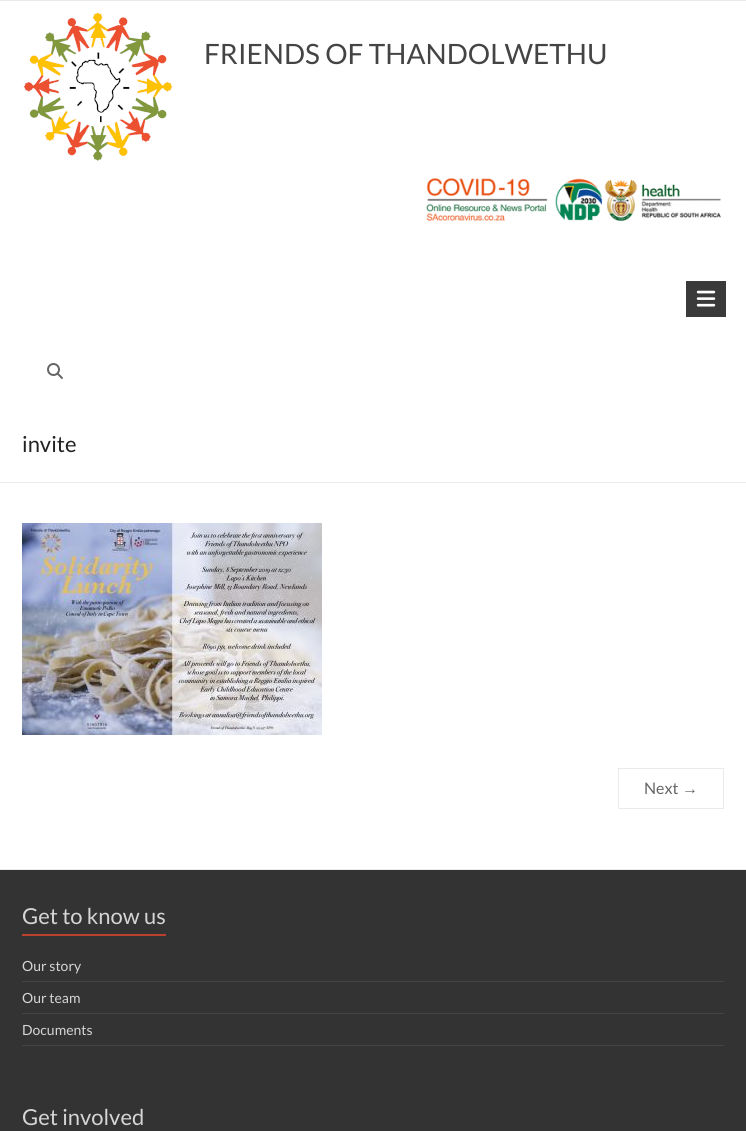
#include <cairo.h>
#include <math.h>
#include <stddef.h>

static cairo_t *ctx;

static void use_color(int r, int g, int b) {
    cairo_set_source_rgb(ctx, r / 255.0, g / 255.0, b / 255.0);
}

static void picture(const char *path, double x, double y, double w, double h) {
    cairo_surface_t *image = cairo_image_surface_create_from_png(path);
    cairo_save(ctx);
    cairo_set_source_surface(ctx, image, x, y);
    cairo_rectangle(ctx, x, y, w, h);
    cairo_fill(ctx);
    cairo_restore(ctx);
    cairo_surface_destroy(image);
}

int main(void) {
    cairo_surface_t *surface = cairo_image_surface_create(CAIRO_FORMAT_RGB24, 746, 1131);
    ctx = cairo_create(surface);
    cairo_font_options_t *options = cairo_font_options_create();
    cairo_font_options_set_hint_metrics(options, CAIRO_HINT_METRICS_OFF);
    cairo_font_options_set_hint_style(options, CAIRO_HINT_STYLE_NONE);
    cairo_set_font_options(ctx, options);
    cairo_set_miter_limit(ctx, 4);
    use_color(255, 255, 255);
    cairo_paint(ctx);
    use_color(234, 234, 234);
    cairo_rectangle(ctx, 0, 0, 746, 1);
    cairo_fill(ctx);
    picture("img1.png", 23, 12, 150, 149);
    cairo_select_font_face(ctx, "Lato", CAIRO_FONT_SLANT_NORMAL, CAIRO_FONT_WEIGHT_NORMAL);
    cairo_set_font_size(ctx, 28);
    use_color(68, 68, 68);
    cairo_move_to(ctx, 204, 64);
    cairo_show_text(ctx, "FRIENDS OF THANDOLWETHU");
    picture("img2.png", 426, 178, 295, 43);
    use_color(58, 58, 58);
    cairo_rectangle(ctx, 686, 281, 40, 36);
    cairo_fill(ctx);
    picture("img3.png", 696, 290, 20, 17);
    picture("img4.png", 47, 363, 16, 16);
    use_color(234, 234, 234);
    cairo_rectangle(ctx, 0, 482, 746, 1);
    cairo_fill(ctx);
    cairo_set_font_size(ctx, 22);
    use_color(34, 34, 34);
    cairo_move_to(ctx, 22, 452);
    cairo_show_text(ctx, "invite");
    picture("img5.png", 22, 523, 300, 212);
    cairo_rectangle(ctx, 618.5, 768.5, 105, 40);
    use_color(234, 234, 234);
    cairo_set_line_width(ctx, 1);
    cairo_stroke(ctx);
    cairo_set_font_size(ctx, 16);
    use_color(102, 102, 102);
    cairo_move_to(ctx, 644, 794);
    cairo_show_text(ctx, "Next");
    cairo_select_font_face(ctx, "Liberation Sans", CAIRO_FONT_SLANT_NORMAL, CAIRO_FONT_WEIGHT_NORMAL);
    cairo_move_to(ctx, 682, 794);
    cairo_show_text(ctx, "→");
    use_color(51, 51, 51);
    cairo_rectangle(ctx, 0, 870, 746, 261);
    cairo_fill(ctx);
    use_color(234, 234, 234);
    cairo_rectangle(ctx, 0, 869, 746, 1);
    cairo_fill(ctx);
    cairo_select_font_face(ctx, "Lato", CAIRO_FONT_SLANT_NORMAL, CAIRO_FONT_WEIGHT_NORMAL);
    cairo_set_font_size(ctx, 22);
    use_color(213, 213, 213);
    cairo_move_to(ctx, 22, 924);
    cairo_show_text(ctx, "Get to know us");
    use_color(185, 65, 46);
    cairo_rectangle(ctx, 22, 934, 144, 2);
    cairo_fill(ctx);
    use_color(68, 68, 68);
    cairo_rectangle(ctx, 22, 981, 702, 1);
    cairo_fill(ctx);
    cairo_set_font_size(ctx, 14);
    use_color(213, 213, 213);
    cairo_move_to(ctx, 22, 971);
    cairo_show_text(ctx, "Our story");
    use_color(68, 68, 68);
    cairo_rectangle(ctx, 22, 1013, 702, 1);
    cairo_fill(ctx);
    use_color(213, 213, 213);
    cairo_move_to(ctx, 22, 1003);
    cairo_show_text(ctx, "Our team");
    use_color(68, 68, 68);
    cairo_rectangle(ctx, 22, 1045, 702, 1);
    cairo_fill(ctx);
    use_color(213, 213, 213);
    cairo_move_to(ctx, 22, 1035);
    cairo_show_text(ctx, "Documents");
    cairo_set_font_size(ctx, 22);
    cairo_move_to(ctx, 22, 1125);
    cairo_show_text(ctx, "Get involved");
    cairo_surface_write_to_png(surface, "result.png");
    cairo_font_options_destroy(options);
    cairo_destroy(ctx);
    cairo_surface_destroy(surface);
    return 0;
}
